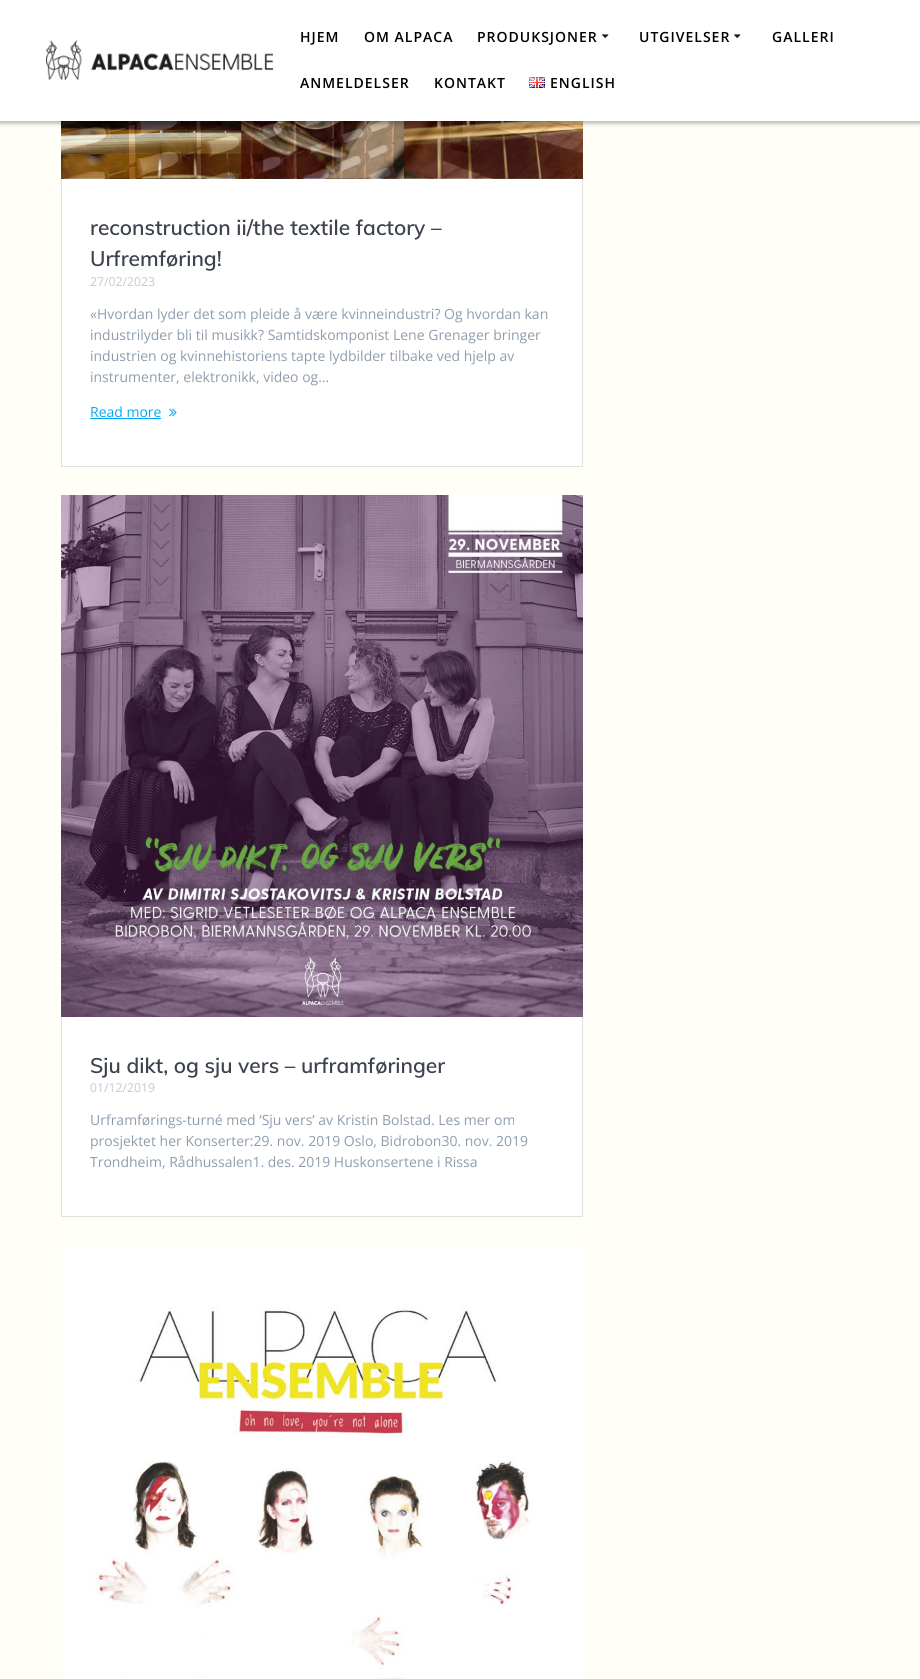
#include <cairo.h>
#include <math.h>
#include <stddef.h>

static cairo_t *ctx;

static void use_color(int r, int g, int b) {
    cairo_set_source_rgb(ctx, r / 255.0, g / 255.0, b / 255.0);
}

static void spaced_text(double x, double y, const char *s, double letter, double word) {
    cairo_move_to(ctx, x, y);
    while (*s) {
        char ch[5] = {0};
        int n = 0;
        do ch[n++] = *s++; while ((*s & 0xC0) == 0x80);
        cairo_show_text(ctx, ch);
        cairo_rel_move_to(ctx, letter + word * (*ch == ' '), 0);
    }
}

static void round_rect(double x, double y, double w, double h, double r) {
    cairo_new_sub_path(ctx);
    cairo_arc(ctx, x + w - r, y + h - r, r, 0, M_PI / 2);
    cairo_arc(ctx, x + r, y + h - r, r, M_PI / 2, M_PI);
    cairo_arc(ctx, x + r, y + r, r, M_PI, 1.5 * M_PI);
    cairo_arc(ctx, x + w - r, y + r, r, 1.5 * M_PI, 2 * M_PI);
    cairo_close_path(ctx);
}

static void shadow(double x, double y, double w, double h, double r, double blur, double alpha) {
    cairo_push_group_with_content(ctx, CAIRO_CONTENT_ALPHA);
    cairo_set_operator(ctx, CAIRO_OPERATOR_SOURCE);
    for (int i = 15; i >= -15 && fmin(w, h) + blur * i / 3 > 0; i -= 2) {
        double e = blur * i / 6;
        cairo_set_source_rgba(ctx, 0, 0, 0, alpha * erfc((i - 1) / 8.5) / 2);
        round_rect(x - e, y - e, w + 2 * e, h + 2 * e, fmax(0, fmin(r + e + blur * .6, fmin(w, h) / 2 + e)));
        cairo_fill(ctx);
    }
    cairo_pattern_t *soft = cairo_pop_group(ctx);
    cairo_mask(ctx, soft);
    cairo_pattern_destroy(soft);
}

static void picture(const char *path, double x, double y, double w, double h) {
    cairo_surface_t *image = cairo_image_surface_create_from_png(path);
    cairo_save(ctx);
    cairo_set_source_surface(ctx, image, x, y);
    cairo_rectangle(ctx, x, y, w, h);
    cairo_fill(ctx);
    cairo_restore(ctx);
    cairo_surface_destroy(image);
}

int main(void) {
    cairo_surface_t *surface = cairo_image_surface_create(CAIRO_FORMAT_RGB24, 920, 1679);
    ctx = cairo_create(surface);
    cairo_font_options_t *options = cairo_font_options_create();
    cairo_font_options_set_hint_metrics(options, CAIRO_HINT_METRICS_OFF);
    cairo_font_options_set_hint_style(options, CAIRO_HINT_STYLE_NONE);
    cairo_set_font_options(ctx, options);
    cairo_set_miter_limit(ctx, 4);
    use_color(255, 254, 247);
    cairo_paint(ctx);
    use_color(255, 255, 255);
    cairo_rectangle(ctx, 62, 179, 520, 287);
    cairo_fill(ctx);
    cairo_rectangle(ctx, 61.5, -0.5, 521, 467);
    use_color(224, 225, 225);
    cairo_set_line_width(ctx, 1);
    cairo_stroke(ctx);
    picture("img4.png", 61, 121, 522, 58);
    use_color(0, 0, 0);
    shadow(-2, -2, 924, 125, 0, 2.5, 0.33);
    use_color(255, 255, 255);
    cairo_rectangle(ctx, 0, 0, 920, 121);
    cairo_fill(ctx);
    picture("img1.png", 46, 40, 227, 40);
    cairo_select_font_face(ctx, "Open Sans SemiBold", CAIRO_FONT_SLANT_NORMAL, CAIRO_FONT_WEIGHT_NORMAL);
    cairo_set_font_size(ctx, 14);
    use_color(0, 0, 0);
    spaced_text(300, 42, "HJEM", 1, 0);
    spaced_text(364, 42, "OM ALPACA", 1, 0);
    spaced_text(477, 42, "PRODUKSJONER", 1, 0);
    picture("img2.png", 602, 34, 7, 4);
    spaced_text(639, 42, "UTGIVELSER", 1, 0);
    picture("img2.png", 734, 34, 7, 4);
    spaced_text(772, 42, "GALLERI", 1, 0);
    spaced_text(300, 88, "ANMELDELSER", 1, 0);
    spaced_text(434, 88, "KONTAKT", 1, 0);
    picture("img3.png", 529, 77, 16, 11);
    spaced_text(550, 88, "ENGLISH", 1, 0);
    cairo_select_font_face(ctx, "Muli SemiBold", CAIRO_FONT_SLANT_NORMAL, CAIRO_FONT_WEIGHT_NORMAL);
    cairo_set_font_size(ctx, 21);
    use_color(60, 66, 79);
    cairo_move_to(ctx, 90, 235);
    cairo_show_text(ctx, "reconstruction ii/the textile factory –");
    cairo_move_to(ctx, 90, 266);
    cairo_show_text(ctx, "Urfremføring!");
    cairo_select_font_face(ctx, "Open Sans", CAIRO_FONT_SLANT_NORMAL, CAIRO_FONT_WEIGHT_NORMAL);
    cairo_set_font_size(ctx, 12.25);
    use_color(193, 201, 210);
    cairo_move_to(ctx, 90, 286);
    cairo_show_text(ctx, "27/02/2023");
    cairo_set_font_size(ctx, 14);
    use_color(142, 157, 174);
    cairo_move_to(ctx, 90, 319);
    cairo_show_text(ctx, "«Hvordan lyder det som pleide å være kvinneindustri? Og hvordan kan");
    cairo_move_to(ctx, 90, 340);
    cairo_show_text(ctx, "industrilyder bli til musikk? Samtidskomponist Lene Grenager bringer");
    cairo_move_to(ctx, 90, 361);
    cairo_show_text(ctx, "industrien og kvinnehistoriens tapte lydbilder tilbake ved hjelp av");
    cairo_move_to(ctx, 90, 382);
    cairo_show_text(ctx, "instrumenter, elektronikk, video og…");
    use_color(3, 169, 244);
    cairo_move_to(ctx, 90, 417);
    cairo_show_text(ctx, "Read more");
    cairo_rectangle(ctx, 90, 418, 71, 1);
    cairo_fill(ctx);
    picture("img5.png", 169, 408, 8, 9);
    use_color(255, 255, 255);
    cairo_rectangle(ctx, 62, 1017, 520, 199);
    cairo_fill(ctx);
    cairo_rectangle(ctx, 61.5, 495.5, 521, 721);
    use_color(224, 225, 225);
    cairo_stroke(ctx);
    picture("img6.png", 61, 495, 522, 522);
    cairo_select_font_face(ctx, "Muli SemiBold", CAIRO_FONT_SLANT_NORMAL, CAIRO_FONT_WEIGHT_NORMAL);
    cairo_set_font_size(ctx, 21);
    use_color(60, 66, 79);
    cairo_move_to(ctx, 90, 1073);
    cairo_show_text(ctx, "Sju dikt, og sju vers – urframføringer");
    cairo_select_font_face(ctx, "Open Sans", CAIRO_FONT_SLANT_NORMAL, CAIRO_FONT_WEIGHT_NORMAL);
    cairo_set_font_size(ctx, 12.25);
    use_color(193, 201, 210);
    cairo_move_to(ctx, 90, 1092);
    cairo_show_text(ctx, "01/12/2019");
    cairo_set_font_size(ctx, 14);
    use_color(142, 157, 174);
    cairo_move_to(ctx, 90, 1125);
    cairo_show_text(ctx, "Urframførings-turné med ‘Sju vers’ av Kristin Bolstad. Les mer om");
    cairo_move_to(ctx, 90, 1146);
    cairo_show_text(ctx, "prosjektet her Konserter:29. nov. 2019 Oslo, Bidrobon30. nov. 2019");
    cairo_move_to(ctx, 90, 1167);
    cairo_show_text(ctx, "Trondheim, Rådhussalen1. des. 2019 Huskonsertene i Rissa");
    picture("img7.png", 61, 1245, 522, 434);
    cairo_surface_write_to_png(surface, "result.png");
    cairo_font_options_destroy(options);
    cairo_destroy(ctx);
    cairo_surface_destroy(surface);
    return 0;
}
